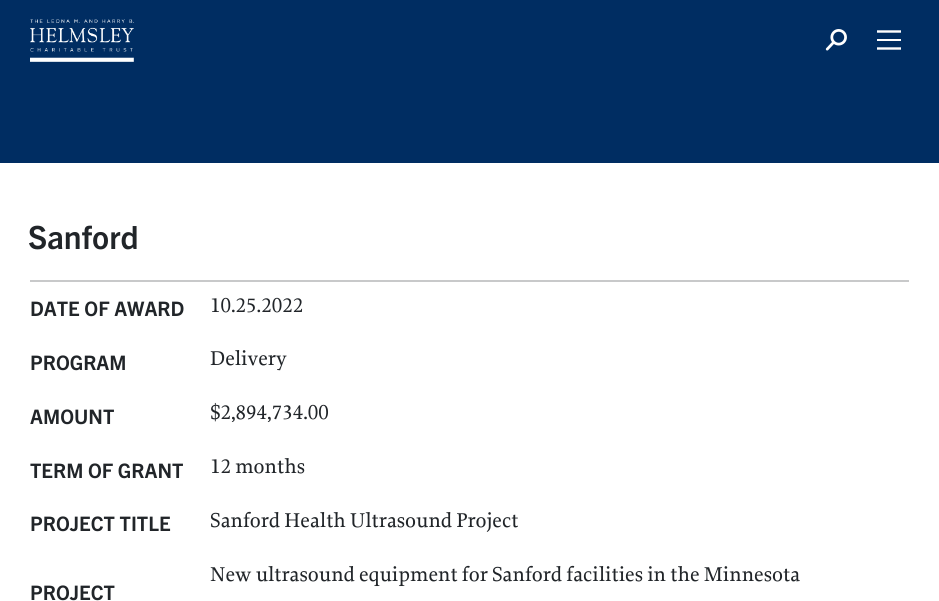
#include <cairo.h>
#include <math.h>
#include <stddef.h>

static cairo_t *ctx;

static void use_color(int r, int g, int b) {
    cairo_set_source_rgb(ctx, r / 255.0, g / 255.0, b / 255.0);
}

static void picture(const char *path, double x, double y, double w, double h) {
    cairo_surface_t *image = cairo_image_surface_create_from_png(path);
    cairo_save(ctx);
    cairo_set_source_surface(ctx, image, x, y);
    cairo_rectangle(ctx, x, y, w, h);
    cairo_fill(ctx);
    cairo_restore(ctx);
    cairo_surface_destroy(image);
}

int main(void) {
    cairo_surface_t *surface = cairo_image_surface_create(CAIRO_FORMAT_RGB24, 939, 601);
    ctx = cairo_create(surface);
    cairo_font_options_t *options = cairo_font_options_create();
    cairo_font_options_set_hint_metrics(options, CAIRO_HINT_METRICS_OFF);
    cairo_font_options_set_hint_style(options, CAIRO_HINT_STYLE_NONE);
    cairo_set_font_options(ctx, options);
    cairo_set_miter_limit(ctx, 4);
    use_color(255, 255, 255);
    cairo_paint(ctx);
    use_color(0, 45, 98);
    cairo_rectangle(ctx, 0, 0, 939, 163);
    cairo_fill(ctx);
    picture("img1.png", 30, 19, 104, 43);
    picture("img2.png", 825, 29, 22, 22);
    cairo_new_path(ctx);
    cairo_move_to(ctx, 877, 31.5);
    cairo_line_to(ctx, 901, 31.5);
    use_color(255, 255, 255);
    cairo_set_line_width(ctx, 2.4);
    cairo_stroke(ctx);
    cairo_rectangle(ctx, 877, 39, 24, 2);
    cairo_fill(ctx);
    cairo_new_path(ctx);
    cairo_move_to(ctx, 877, 48.5);
    cairo_line_to(ctx, 901, 48.5);
    cairo_stroke(ctx);
    cairo_select_font_face(ctx, "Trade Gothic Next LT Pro", CAIRO_FONT_SLANT_NORMAL, CAIRO_FONT_WEIGHT_BOLD);
    cairo_set_font_size(ctx, 32);
    use_color(33, 37, 41);
    cairo_move_to(ctx, 28, 249);
    cairo_show_text(ctx, "Sanford");
    use_color(200, 201, 202);
    cairo_rectangle(ctx, 30, 280, 879, 2);
    cairo_fill(ctx);
    cairo_set_font_size(ctx, 20);
    use_color(33, 37, 41);
    cairo_move_to(ctx, 30, 316);
    cairo_show_text(ctx, "DATE OF AWARD");
    cairo_select_font_face(ctx, "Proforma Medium", CAIRO_FONT_SLANT_NORMAL, CAIRO_FONT_WEIGHT_NORMAL);
    cairo_set_font_size(ctx, 21);
    cairo_move_to(ctx, 210, 312);
    cairo_show_text(ctx, "10.25.2022");
    cairo_select_font_face(ctx, "Trade Gothic Next LT Pro", CAIRO_FONT_SLANT_NORMAL, CAIRO_FONT_WEIGHT_BOLD);
    cairo_set_font_size(ctx, 20);
    cairo_move_to(ctx, 30, 370);
    cairo_show_text(ctx, "PROGRAM");
    cairo_select_font_face(ctx, "Proforma Medium", CAIRO_FONT_SLANT_NORMAL, CAIRO_FONT_WEIGHT_NORMAL);
    cairo_set_font_size(ctx, 21);
    cairo_move_to(ctx, 210, 365);
    cairo_show_text(ctx, "Delivery");
    cairo_select_font_face(ctx, "Trade Gothic Next LT Pro", CAIRO_FONT_SLANT_NORMAL, CAIRO_FONT_WEIGHT_BOLD);
    cairo_set_font_size(ctx, 20);
    cairo_move_to(ctx, 30, 424);
    cairo_show_text(ctx, "AMOUNT");
    cairo_select_font_face(ctx, "Proforma Medium", CAIRO_FONT_SLANT_NORMAL, CAIRO_FONT_WEIGHT_NORMAL);
    cairo_set_font_size(ctx, 21);
    cairo_move_to(ctx, 210, 419);
    cairo_show_text(ctx, "$2,894,734.00");
    cairo_select_font_face(ctx, "Trade Gothic Next LT Pro", CAIRO_FONT_SLANT_NORMAL, CAIRO_FONT_WEIGHT_BOLD);
    cairo_set_font_size(ctx, 20);
    cairo_move_to(ctx, 30, 478);
    cairo_show_text(ctx, "TERM OF GRANT");
    cairo_select_font_face(ctx, "Proforma Medium", CAIRO_FONT_SLANT_NORMAL, CAIRO_FONT_WEIGHT_NORMAL);
    cairo_set_font_size(ctx, 21);
    cairo_move_to(ctx, 210, 473);
    cairo_show_text(ctx, "12 months");
    cairo_select_font_face(ctx, "Trade Gothic Next LT Pro", CAIRO_FONT_SLANT_NORMAL, CAIRO_FONT_WEIGHT_BOLD);
    cairo_set_font_size(ctx, 20);
    cairo_move_to(ctx, 30, 531);
    cairo_show_text(ctx, "PROJECT TITLE");
    cairo_select_font_face(ctx, "Proforma Medium", CAIRO_FONT_SLANT_NORMAL, CAIRO_FONT_WEIGHT_NORMAL);
    cairo_set_font_size(ctx, 21);
    cairo_move_to(ctx, 210, 527);
    cairo_show_text(ctx, "Sanford Health Ultrasound Project");
    cairo_move_to(ctx, 210, 581);
    cairo_show_text(ctx, "New ultrasound equipment for Sanford facilities in the Minnesota");
    cairo_select_font_face(ctx, "Trade Gothic Next LT Pro", CAIRO_FONT_SLANT_NORMAL, CAIRO_FONT_WEIGHT_BOLD);
    cairo_set_font_size(ctx, 20);
    cairo_move_to(ctx, 30, 600);
    cairo_show_text(ctx, "PROJECT");
    cairo_surface_write_to_png(surface, "result.png");
    cairo_font_options_destroy(options);
    cairo_destroy(ctx);
    cairo_surface_destroy(surface);
    return 0;
}
